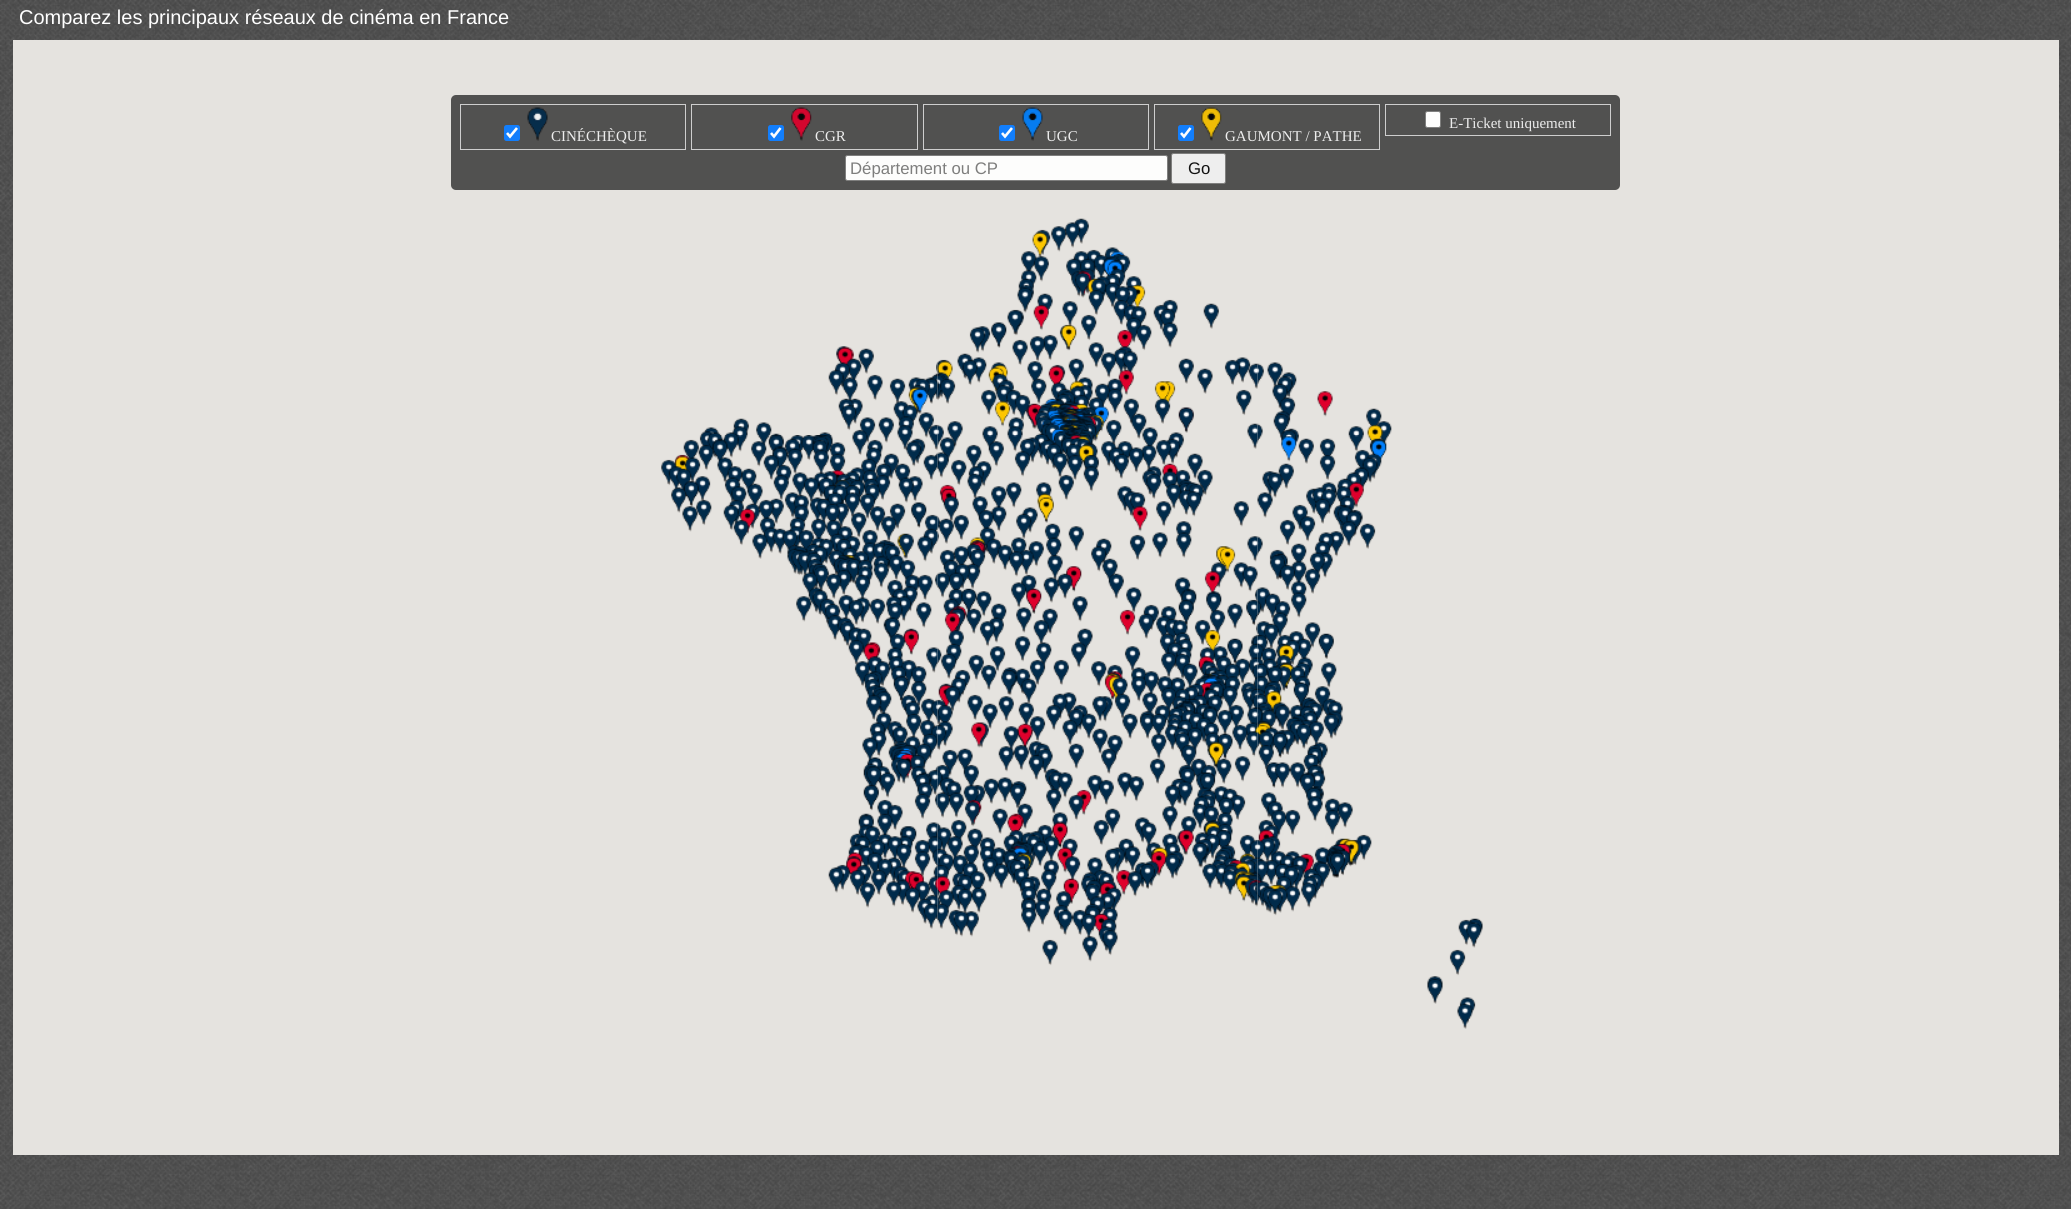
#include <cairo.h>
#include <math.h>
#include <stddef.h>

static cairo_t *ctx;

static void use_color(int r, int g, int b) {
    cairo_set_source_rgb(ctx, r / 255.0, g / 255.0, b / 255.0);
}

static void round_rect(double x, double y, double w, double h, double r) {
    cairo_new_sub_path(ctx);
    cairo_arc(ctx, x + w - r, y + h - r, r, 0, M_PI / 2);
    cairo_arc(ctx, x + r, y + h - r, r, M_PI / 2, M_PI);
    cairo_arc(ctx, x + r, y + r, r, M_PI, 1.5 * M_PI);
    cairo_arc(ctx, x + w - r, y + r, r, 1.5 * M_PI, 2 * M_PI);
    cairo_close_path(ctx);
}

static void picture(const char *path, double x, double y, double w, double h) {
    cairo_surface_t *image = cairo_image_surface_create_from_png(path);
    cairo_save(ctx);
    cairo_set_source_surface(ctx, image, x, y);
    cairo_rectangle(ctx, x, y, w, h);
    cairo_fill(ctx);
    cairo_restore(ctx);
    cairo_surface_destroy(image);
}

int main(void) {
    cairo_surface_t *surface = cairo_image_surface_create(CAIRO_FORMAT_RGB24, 2071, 1209);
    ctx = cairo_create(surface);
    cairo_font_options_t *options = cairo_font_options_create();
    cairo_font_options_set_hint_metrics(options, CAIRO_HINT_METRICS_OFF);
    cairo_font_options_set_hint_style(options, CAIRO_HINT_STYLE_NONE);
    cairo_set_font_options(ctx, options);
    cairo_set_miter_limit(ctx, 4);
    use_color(255, 255, 255);
    cairo_paint(ctx);
    picture("img1.png", 0, 0, 2071, 1209);
    cairo_select_font_face(ctx, "Liberation Sans", CAIRO_FONT_SLANT_NORMAL, CAIRO_FONT_WEIGHT_NORMAL);
    cairo_set_font_size(ctx, 20);
    use_color(255, 255, 255);
    cairo_move_to(ctx, 19, 24);
    cairo_show_text(ctx, "Comparez les principaux réseaux de cinéma en France");
    use_color(229, 227, 223);
    cairo_rectangle(ctx, 13, 40, 2046, 1115);
    cairo_fill(ctx);
    picture("img2.png", 700, 346, 238, 89);
    picture("img3.png", 937, 218, 321, 217);
    picture("img4.png", 1257, 362, 135, 73);
    picture("img6.png", 937, 435, 321, 320);
    picture("img5.png", 661, 435, 277, 320);
    picture("img7.png", 1257, 435, 132, 320);
    picture("img10.png", 1257, 755, 226, 274);
    picture("img9.png", 937, 755, 321, 211);
    picture("img8.png", 828, 755, 110, 174);
    use_color(81, 81, 80);
    round_rect(451, 95, 1169, 95, 5);
    cairo_fill(ctx);
    cairo_rectangle(ctx, 1385.5, 104.5, 225, 31);
    use_color(206, 206, 206);
    cairo_set_line_width(ctx, 1);
    cairo_stroke(ctx);
    use_color(253, 253, 252);
    round_rect(1425.5, 111.5, 15, 16, 2);
    cairo_fill_preserve(ctx);
    use_color(127, 127, 126);
    cairo_stroke(ctx);
    cairo_select_font_face(ctx, "Liberation Serif", CAIRO_FONT_SLANT_NORMAL, CAIRO_FONT_WEIGHT_NORMAL);
    cairo_set_font_size(ctx, 15);
    use_color(237, 237, 237);
    cairo_move_to(ctx, 1449, 128);
    cairo_show_text(ctx, "E-Ticket uniquement");
    cairo_rectangle(ctx, 460.5, 104.5, 225, 45);
    use_color(206, 206, 206);
    cairo_stroke(ctx);
    use_color(18, 126, 252);
    round_rect(504, 125, 16, 16, 2.5);
    cairo_fill(ctx);
    cairo_new_path(ctx);
    cairo_move_to(ctx, 507, 133);
    cairo_line_to(ctx, 510, 136.5);
    cairo_line_to(ctx, 517, 128);
    use_color(253, 253, 252);
    cairo_set_line_width(ctx, 2.6);
    cairo_stroke(ctx);
    picture("img11.png", 527, 107, 21, 34);
    use_color(237, 237, 237);
    cairo_move_to(ctx, 551, 141);
    cairo_show_text(ctx, "CINÉCHÈQUE");
    cairo_rectangle(ctx, 691.5, 104.5, 226, 45);
    use_color(206, 206, 206);
    cairo_set_line_width(ctx, 1);
    cairo_stroke(ctx);
    use_color(18, 126, 252);
    round_rect(768, 125, 16, 16, 2.5);
    cairo_fill(ctx);
    cairo_new_path(ctx);
    cairo_move_to(ctx, 771, 133);
    cairo_line_to(ctx, 774, 136.5);
    cairo_line_to(ctx, 780.5, 128);
    use_color(253, 253, 252);
    cairo_set_line_width(ctx, 2.6);
    cairo_stroke(ctx);
    picture("img12.png", 791, 107, 21, 34);
    use_color(237, 237, 237);
    cairo_move_to(ctx, 815, 141);
    cairo_show_text(ctx, "CGR");
    cairo_rectangle(ctx, 923.5, 104.5, 225, 45);
    use_color(206, 206, 206);
    cairo_set_line_width(ctx, 1);
    cairo_stroke(ctx);
    use_color(18, 126, 252);
    round_rect(999, 125, 16, 16, 2.5);
    cairo_fill(ctx);
    cairo_new_path(ctx);
    cairo_move_to(ctx, 1002, 133);
    cairo_line_to(ctx, 1005, 136.5);
    cairo_line_to(ctx, 1012, 128);
    use_color(253, 253, 252);
    cairo_set_line_width(ctx, 2.6);
    cairo_stroke(ctx);
    picture("img13.png", 1022, 107, 21, 34);
    use_color(237, 237, 237);
    cairo_move_to(ctx, 1046, 141);
    cairo_show_text(ctx, "UGC");
    cairo_rectangle(ctx, 1154.5, 104.5, 225, 45);
    use_color(206, 206, 206);
    cairo_set_line_width(ctx, 1);
    cairo_stroke(ctx);
    use_color(18, 126, 252);
    round_rect(1178, 125, 16, 16, 2.5);
    cairo_fill(ctx);
    cairo_new_path(ctx);
    cairo_move_to(ctx, 1181, 133);
    cairo_line_to(ctx, 1184, 136.5);
    cairo_line_to(ctx, 1190.5, 128);
    use_color(253, 253, 252);
    cairo_set_line_width(ctx, 2.6);
    cairo_stroke(ctx);
    picture("img14.png", 1201, 107, 21, 34);
    use_color(237, 237, 237);
    cairo_move_to(ctx, 1225, 141);
    cairo_show_text(ctx, "GAUMONT / PATHE");
    use_color(253, 253, 252);
    round_rect(845.5, 155.5, 322, 25, 2);
    cairo_fill_preserve(ctx);
    use_color(127, 127, 126);
    cairo_set_line_width(ctx, 1);
    cairo_stroke(ctx);
    cairo_select_font_face(ctx, "Liberation Sans", CAIRO_FONT_SLANT_NORMAL, CAIRO_FONT_WEIGHT_NORMAL);
    cairo_set_font_size(ctx, 16.75);
    use_color(126, 126, 125);
    cairo_move_to(ctx, 850, 174);
    cairo_show_text(ctx, "Département ou CP");
    use_color(238, 238, 238);
    round_rect(1171.5, 153.5, 54, 30, 2);
    cairo_fill_preserve(ctx);
    use_color(127, 127, 126);
    cairo_stroke(ctx);
    use_color(18, 18, 18);
    cairo_move_to(ctx, 1188, 174);
    cairo_show_text(ctx, "Go");
    cairo_surface_write_to_png(surface, "result.png");
    cairo_font_options_destroy(options);
    cairo_destroy(ctx);
    cairo_surface_destroy(surface);
    return 0;
}
